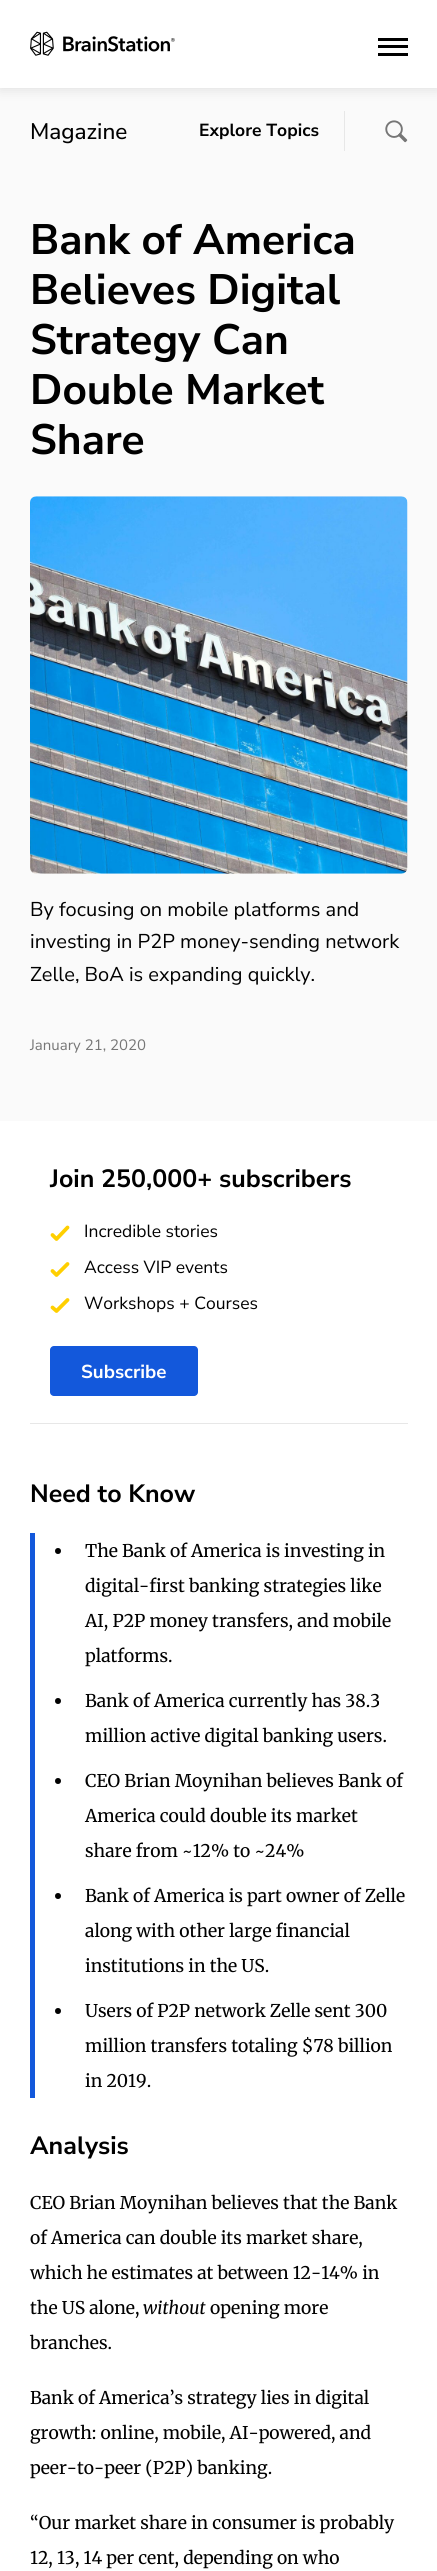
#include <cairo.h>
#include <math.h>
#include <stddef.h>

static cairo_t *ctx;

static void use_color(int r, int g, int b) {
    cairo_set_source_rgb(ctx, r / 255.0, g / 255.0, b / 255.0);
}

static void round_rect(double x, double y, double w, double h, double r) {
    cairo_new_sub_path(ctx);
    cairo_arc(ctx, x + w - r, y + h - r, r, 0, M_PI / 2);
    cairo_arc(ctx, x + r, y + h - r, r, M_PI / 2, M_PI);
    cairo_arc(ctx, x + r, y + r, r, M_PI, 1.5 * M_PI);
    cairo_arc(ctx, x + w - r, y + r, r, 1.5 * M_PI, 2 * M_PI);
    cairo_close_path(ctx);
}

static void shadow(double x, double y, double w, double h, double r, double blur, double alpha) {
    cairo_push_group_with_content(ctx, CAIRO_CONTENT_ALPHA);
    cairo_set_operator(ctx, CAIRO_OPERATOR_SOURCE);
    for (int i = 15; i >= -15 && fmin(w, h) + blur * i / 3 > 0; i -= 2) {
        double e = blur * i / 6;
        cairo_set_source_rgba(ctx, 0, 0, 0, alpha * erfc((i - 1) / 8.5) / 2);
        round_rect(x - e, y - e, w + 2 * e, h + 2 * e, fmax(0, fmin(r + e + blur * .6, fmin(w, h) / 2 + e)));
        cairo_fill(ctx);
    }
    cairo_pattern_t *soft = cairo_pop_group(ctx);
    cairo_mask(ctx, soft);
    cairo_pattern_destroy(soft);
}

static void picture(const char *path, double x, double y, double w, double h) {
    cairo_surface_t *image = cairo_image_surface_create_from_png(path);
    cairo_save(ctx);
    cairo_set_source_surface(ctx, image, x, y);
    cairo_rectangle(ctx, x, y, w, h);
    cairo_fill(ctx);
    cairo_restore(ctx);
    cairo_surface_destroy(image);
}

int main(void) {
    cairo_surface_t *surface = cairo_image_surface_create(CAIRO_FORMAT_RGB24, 437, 2571);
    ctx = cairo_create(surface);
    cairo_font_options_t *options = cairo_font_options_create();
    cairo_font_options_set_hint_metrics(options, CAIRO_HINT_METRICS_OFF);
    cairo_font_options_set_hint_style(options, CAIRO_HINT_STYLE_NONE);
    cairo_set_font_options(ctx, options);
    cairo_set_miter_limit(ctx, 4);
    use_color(255, 255, 255);
    cairo_paint(ctx);
    use_color(250, 250, 250);
    cairo_rectangle(ctx, 0, 88, 437, 1033);
    cairo_fill(ctx);
    use_color(0, 0, 0);
    shadow(0, 3, 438, 87, 0, 6, 0.1);
    use_color(255, 255, 255);
    cairo_rectangle(ctx, 0, 0, 437, 88);
    cairo_fill(ctx);
    picture("img1.png", 30, 31, 145, 25);
    use_color(0, 0, 0);
    cairo_rectangle(ctx, 378, 38, 30, 3);
    cairo_fill(ctx);
    cairo_rectangle(ctx, 378, 45, 30, 3);
    cairo_fill(ctx);
    cairo_rectangle(ctx, 378, 53, 30, 3);
    cairo_fill(ctx);
    cairo_select_font_face(ctx, "Nunito Sans Medium", CAIRO_FONT_SLANT_NORMAL, CAIRO_FONT_WEIGHT_NORMAL);
    cairo_set_font_size(ctx, 22.5);
    cairo_move_to(ctx, 30, 139);
    cairo_show_text(ctx, "Magazine");
    cairo_select_font_face(ctx, "Nunito Sans", CAIRO_FONT_SLANT_NORMAL, CAIRO_FONT_WEIGHT_BOLD);
    cairo_set_font_size(ctx, 17.5);
    cairo_move_to(ctx, 199, 136);
    cairo_show_text(ctx, "Explore Topics");
    use_color(231, 231, 231);
    cairo_rectangle(ctx, 344, 111, 1, 40);
    cairo_fill(ctx);
    picture("img2.png", 385, 120, 23, 23);
    cairo_set_font_size(ctx, 42.5);
    use_color(0, 0, 0);
    cairo_move_to(ctx, 30, 254);
    cairo_show_text(ctx, "Bank of America");
    cairo_move_to(ctx, 30, 304);
    cairo_show_text(ctx, "Believes Digital");
    cairo_move_to(ctx, 30, 354);
    cairo_show_text(ctx, "Strategy Can");
    cairo_move_to(ctx, 30, 404);
    cairo_show_text(ctx, "Double Market");
    cairo_move_to(ctx, 30, 454);
    cairo_show_text(ctx, "Share");
    picture("img3.png", 30, 496, 378, 378);
    cairo_select_font_face(ctx, "Nunito Sans", CAIRO_FONT_SLANT_NORMAL, CAIRO_FONT_WEIGHT_NORMAL);
    cairo_set_font_size(ctx, 20);
    cairo_move_to(ctx, 30, 916);
    cairo_show_text(ctx, "By focusing on mobile platforms and");
    cairo_move_to(ctx, 30, 948);
    cairo_show_text(ctx, "investing in P2P money-sending network");
    cairo_move_to(ctx, 30, 981);
    cairo_show_text(ctx, "Zelle, BoA is expanding quickly.");
    cairo_set_font_size(ctx, 15);
    use_color(118, 118, 118);
    cairo_move_to(ctx, 30, 1050);
    cairo_show_text(ctx, "January 21, 2020");
    use_color(231, 231, 231);
    cairo_rectangle(ctx, 30, 1423, 378, 1);
    cairo_fill(ctx);
    cairo_select_font_face(ctx, "Nunito Sans", CAIRO_FONT_SLANT_NORMAL, CAIRO_FONT_WEIGHT_BOLD);
    cairo_set_font_size(ctx, 25);
    use_color(0, 0, 0);
    cairo_move_to(ctx, 50, 1187);
    cairo_show_text(ctx, "Join 250,000+ subscribers");
    cairo_new_path(ctx);
    cairo_move_to(ctx, 52.5, 1235);
    cairo_line_to(ctx, 56.5, 1239);
    cairo_line_to(ctx, 67.5, 1227.5);
    cairo_move_to(ctx, 52.5, 1271);
    cairo_line_to(ctx, 56.5, 1275);
    cairo_line_to(ctx, 67.5, 1264);
    use_color(255, 207, 0);
    cairo_set_line_width(ctx, 3.8);
    cairo_set_line_cap(ctx, CAIRO_LINE_CAP_ROUND);
    cairo_set_line_join(ctx, CAIRO_LINE_JOIN_ROUND);
    cairo_stroke(ctx);
    cairo_select_font_face(ctx, "Nunito Sans", CAIRO_FONT_SLANT_NORMAL, CAIRO_FONT_WEIGHT_NORMAL);
    cairo_set_font_size(ctx, 17.5);
    use_color(0, 0, 0);
    cairo_move_to(ctx, 84, 1237);
    cairo_show_text(ctx, "Incredible stories");
    cairo_move_to(ctx, 84, 1273);
    cairo_show_text(ctx, "Access VIP events");
    cairo_new_path(ctx);
    cairo_move_to(ctx, 52.5, 1307.5);
    cairo_line_to(ctx, 56.5, 1311);
    cairo_line_to(ctx, 67.5, 1300);
    use_color(255, 207, 0);
    cairo_stroke(ctx);
    use_color(0, 0, 0);
    cairo_move_to(ctx, 84, 1309);
    cairo_show_text(ctx, "Workshops + Courses");
    use_color(19, 88, 219);
    round_rect(50, 1346, 148, 50, 4);
    cairo_fill(ctx);
    cairo_select_font_face(ctx, "Nunito Sans", CAIRO_FONT_SLANT_NORMAL, CAIRO_FONT_WEIGHT_BOLD);
    cairo_set_font_size(ctx, 18.75);
    use_color(255, 255, 255);
    cairo_move_to(ctx, 81, 1378);
    cairo_show_text(ctx, "Subscribe");
    cairo_set_font_size(ctx, 25);
    use_color(0, 0, 0);
    cairo_move_to(ctx, 30, 1502);
    cairo_show_text(ctx, "Need to Know");
    use_color(19, 88, 219);
    cairo_rectangle(ctx, 30, 1533, 5, 565);
    cairo_fill(ctx);
    use_color(0, 0, 0);
    cairo_arc(ctx, 58, 1551, 3, 0, 2 * M_PI);
    cairo_fill(ctx);
    cairo_select_font_face(ctx, "Merriweather", CAIRO_FONT_SLANT_NORMAL, CAIRO_FONT_WEIGHT_NORMAL);
    cairo_set_font_size(ctx, 17.5);
    cairo_move_to(ctx, 85, 1557);
    cairo_show_text(ctx, "The Bank of America is investing in");
    cairo_move_to(ctx, 85, 1592);
    cairo_show_text(ctx, "digital-first banking strategies like");
    cairo_move_to(ctx, 85, 1627);
    cairo_show_text(ctx, "AI, P2P money transfers, and mobile");
    cairo_move_to(ctx, 85, 1662);
    cairo_show_text(ctx, "platforms.");
    cairo_new_path(ctx);
    cairo_arc(ctx, 58, 1701, 3, 0, 2 * M_PI);
    cairo_fill(ctx);
    cairo_move_to(ctx, 85, 1707);
    cairo_show_text(ctx, "Bank of America currently has 38.3");
    cairo_move_to(ctx, 85, 1742);
    cairo_show_text(ctx, "million active digital banking users.");
    cairo_new_path(ctx);
    cairo_arc(ctx, 58, 1781, 3, 0, 2 * M_PI);
    cairo_fill(ctx);
    cairo_move_to(ctx, 85, 1787);
    cairo_show_text(ctx, "CEO Brian Moynihan believes Bank of");
    cairo_move_to(ctx, 85, 1822);
    cairo_show_text(ctx, "America could double its market");
    cairo_move_to(ctx, 85, 1857);
    cairo_show_text(ctx, "share from ~12% to ~24%");
    cairo_new_path(ctx);
    cairo_arc(ctx, 58, 1896, 3, 0, 2 * M_PI);
    cairo_fill(ctx);
    cairo_move_to(ctx, 85, 1902);
    cairo_show_text(ctx, "Bank of America is part owner of Zelle");
    cairo_move_to(ctx, 85, 1937);
    cairo_show_text(ctx, "along with other large financial");
    cairo_move_to(ctx, 85, 1972);
    cairo_show_text(ctx, "institutions in the US.");
    cairo_new_path(ctx);
    cairo_arc(ctx, 58, 2011, 3, 0, 2 * M_PI);
    cairo_fill(ctx);
    cairo_move_to(ctx, 85, 2017);
    cairo_show_text(ctx, "Users of P2P network Zelle sent 300");
    cairo_move_to(ctx, 85, 2052);
    cairo_show_text(ctx, "million transfers totaling $78 billion");
    cairo_move_to(ctx, 85, 2087);
    cairo_show_text(ctx, "in 2019.");
    cairo_select_font_face(ctx, "Nunito Sans", CAIRO_FONT_SLANT_NORMAL, CAIRO_FONT_WEIGHT_BOLD);
    cairo_set_font_size(ctx, 25);
    cairo_move_to(ctx, 30, 2154);
    cairo_show_text(ctx, "Analysis");
    cairo_select_font_face(ctx, "Merriweather", CAIRO_FONT_SLANT_NORMAL, CAIRO_FONT_WEIGHT_NORMAL);
    cairo_set_font_size(ctx, 17.5);
    cairo_move_to(ctx, 30, 2209);
    cairo_show_text(ctx, "CEO Brian Moynihan believes that the Bank");
    cairo_move_to(ctx, 30, 2244);
    cairo_show_text(ctx, "of America can double its market share,");
    cairo_move_to(ctx, 30, 2279);
    cairo_show_text(ctx, "which he estimates at between 12-14% in");
    cairo_move_to(ctx, 30, 2314);
    cairo_show_text(ctx, "the US alone,");
    cairo_select_font_face(ctx, "Merriweather", CAIRO_FONT_SLANT_ITALIC, CAIRO_FONT_WEIGHT_NORMAL);
    cairo_move_to(ctx, 143, 2314);
    cairo_show_text(ctx, "without");
    cairo_select_font_face(ctx, "Merriweather", CAIRO_FONT_SLANT_NORMAL, CAIRO_FONT_WEIGHT_NORMAL);
    cairo_move_to(ctx, 210, 2314);
    cairo_show_text(ctx, "opening more");
    cairo_move_to(ctx, 30, 2349);
    cairo_show_text(ctx, "branches.");
    cairo_move_to(ctx, 30, 2404);
    cairo_show_text(ctx, "Bank of America’s strategy lies in digital");
    cairo_move_to(ctx, 30, 2439);
    cairo_show_text(ctx, "growth: online, mobile, AI-powered, and");
    cairo_move_to(ctx, 30, 2474);
    cairo_show_text(ctx, "peer-to-peer (P2P) banking.");
    cairo_move_to(ctx, 30, 2529);
    cairo_show_text(ctx, "“Our market share in consumer is probably");
    cairo_move_to(ctx, 30, 2564);
    cairo_show_text(ctx, "12, 13, 14 per cent, depending on who");
    cairo_surface_write_to_png(surface, "result.png");
    cairo_font_options_destroy(options);
    cairo_destroy(ctx);
    cairo_surface_destroy(surface);
    return 0;
}
